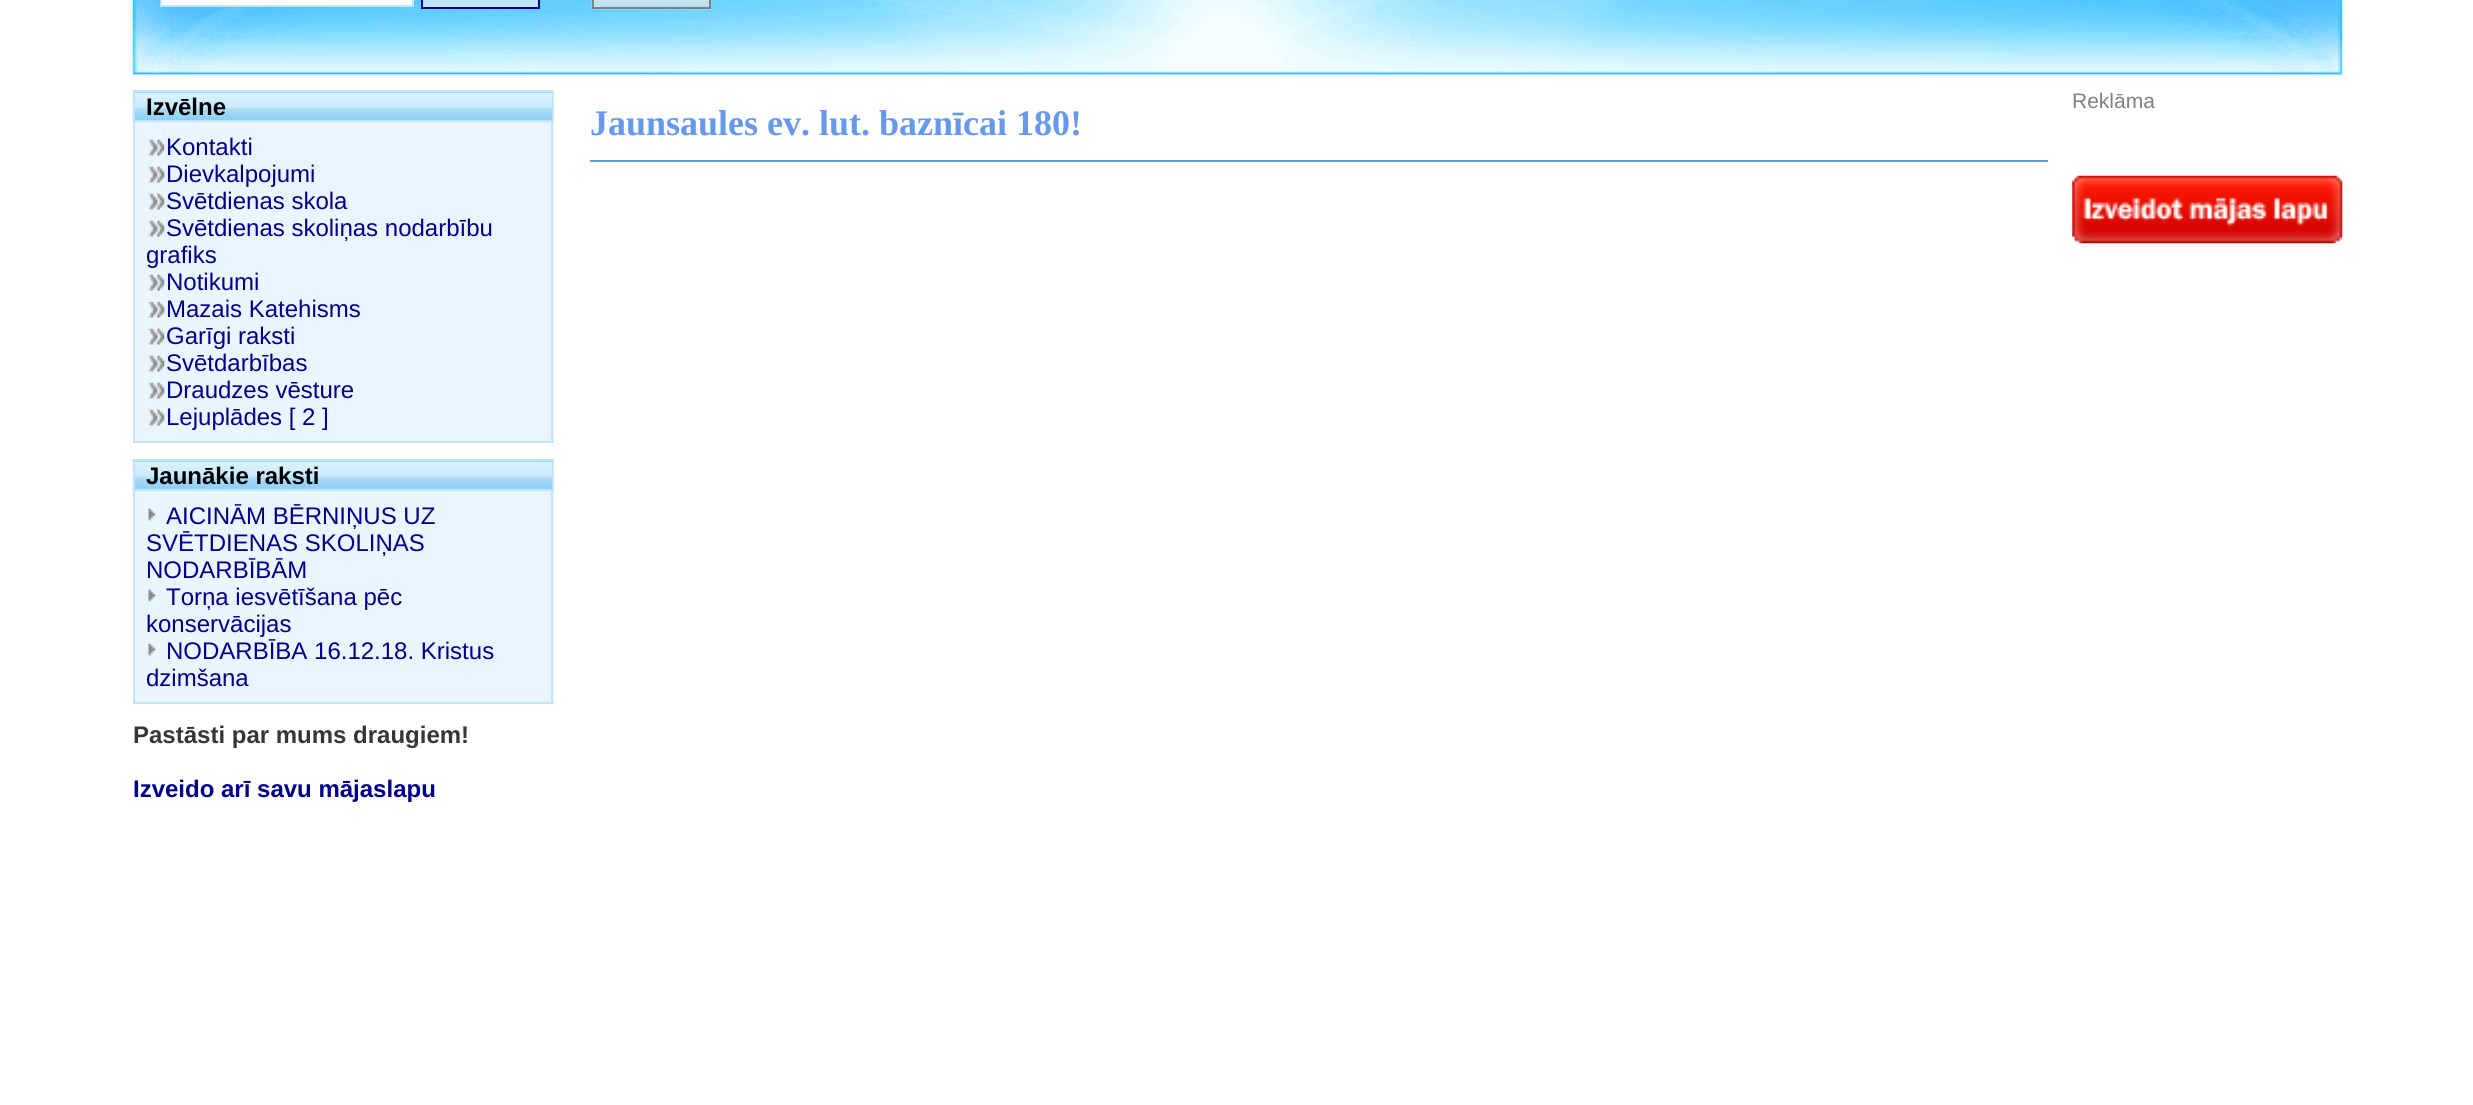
#include <cairo.h>
#include <math.h>
#include <stddef.h>

static cairo_t *ctx;

static void use_color(int r, int g, int b) {
    cairo_set_source_rgb(ctx, r / 255.0, g / 255.0, b / 255.0);
}

static void picture(const char *path, double x, double y, double w, double h) {
    cairo_surface_t *image = cairo_image_surface_create_from_png(path);
    cairo_save(ctx);
    cairo_set_source_surface(ctx, image, x, y);
    cairo_rectangle(ctx, x, y, w, h);
    cairo_fill(ctx);
    cairo_restore(ctx);
    cairo_surface_destroy(image);
}

int main(void) {
    cairo_surface_t *surface = cairo_image_surface_create(CAIRO_FORMAT_RGB24, 2473, 1105);
    ctx = cairo_create(surface);
    cairo_font_options_t *options = cairo_font_options_create();
    cairo_font_options_set_hint_metrics(options, CAIRO_HINT_METRICS_OFF);
    cairo_font_options_set_hint_style(options, CAIRO_HINT_STYLE_NONE);
    cairo_set_font_options(ctx, options);
    cairo_set_miter_limit(ctx, 4);
    use_color(255, 255, 255);
    cairo_paint(ctx);
    picture("img1.png", 132, 0, 2211, 75);
    use_color(255, 255, 255);
    cairo_rectangle(ctx, 161, -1, 252, 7);
    cairo_fill_preserve(ctx);
    use_color(193, 229, 255);
    cairo_stroke(ctx);
    use_color(191, 229, 255);
    cairo_rectangle(ctx, 422, -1, 117, 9);
    cairo_fill_preserve(ctx);
    use_color(0, 0, 139);
    cairo_stroke(ctx);
    picture("img2.png", 591, 0, 120, 10);
    cairo_rectangle(ctx, 593, -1, 117, 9);
    use_color(128, 128, 128);
    cairo_stroke(ctx);
    picture("img3.png", 132, 90, 420, 32);
    cairo_rectangle(ctx, 134, 91, 419, 30);
    use_color(193, 229, 255);
    cairo_stroke(ctx);
    cairo_select_font_face(ctx, "Liberation Sans", CAIRO_FONT_SLANT_NORMAL, CAIRO_FONT_WEIGHT_BOLD);
    cairo_set_font_size(ctx, 24);
    use_color(0, 0, 0);
    cairo_move_to(ctx, 146, 115);
    cairo_show_text(ctx, "Izvēlne");
    use_color(233, 246, 255);
    cairo_rectangle(ctx, 135, 122, 419, 319);
    cairo_fill(ctx);
    use_color(193, 229, 255);
    cairo_rectangle(ctx, 551, 122, 2, 321);
    cairo_fill(ctx);
    cairo_rectangle(ctx, 133, 441, 421, 2);
    cairo_fill(ctx);
    cairo_rectangle(ctx, 133, 122, 2, 321);
    cairo_fill(ctx);
    picture("img4.png", 148, 139, 17, 17);
    cairo_select_font_face(ctx, "Liberation Sans", CAIRO_FONT_SLANT_NORMAL, CAIRO_FONT_WEIGHT_NORMAL);
    use_color(0, 0, 139);
    cairo_move_to(ctx, 166, 155);
    cairo_show_text(ctx, "Kontakti");
    picture("img4.png", 148, 166, 17, 17);
    cairo_move_to(ctx, 166, 182);
    cairo_show_text(ctx, "Dievkalpojumi");
    picture("img4.png", 148, 193, 17, 17);
    cairo_move_to(ctx, 166, 209);
    cairo_show_text(ctx, "Svētdienas skola");
    picture("img4.png", 148, 220, 17, 17);
    cairo_move_to(ctx, 166, 236);
    cairo_show_text(ctx, "Svētdienas skoliņas nodarbību");
    cairo_move_to(ctx, 146, 263);
    cairo_show_text(ctx, "grafiks");
    picture("img4.png", 148, 274, 17, 17);
    cairo_move_to(ctx, 166, 290);
    cairo_show_text(ctx, "Notikumi");
    picture("img4.png", 148, 301, 17, 17);
    cairo_move_to(ctx, 166, 317);
    cairo_show_text(ctx, "Mazais Katehisms");
    picture("img4.png", 148, 328, 17, 17);
    cairo_move_to(ctx, 166, 344);
    cairo_show_text(ctx, "Garīgi raksti");
    picture("img4.png", 148, 355, 17, 17);
    cairo_move_to(ctx, 166, 371);
    cairo_show_text(ctx, "Svētdarbības");
    picture("img4.png", 148, 382, 17, 17);
    cairo_move_to(ctx, 166, 398);
    cairo_show_text(ctx, "Draudzes vēsture");
    picture("img4.png", 148, 409, 17, 17);
    cairo_move_to(ctx, 166, 425);
    cairo_show_text(ctx, "Lejuplādes [ 2 ]");
    picture("img3.png", 132, 459, 420, 32);
    cairo_rectangle(ctx, 134, 460, 419, 30);
    use_color(193, 229, 255);
    cairo_stroke(ctx);
    cairo_select_font_face(ctx, "Liberation Sans", CAIRO_FONT_SLANT_NORMAL, CAIRO_FONT_WEIGHT_BOLD);
    use_color(0, 0, 0);
    cairo_move_to(ctx, 146, 484);
    cairo_show_text(ctx, "Jaunākie raksti");
    use_color(233, 246, 255);
    cairo_rectangle(ctx, 135, 491, 419, 211);
    cairo_fill(ctx);
    use_color(193, 229, 255);
    cairo_rectangle(ctx, 551, 491, 2, 213);
    cairo_fill(ctx);
    cairo_rectangle(ctx, 133, 702, 421, 2);
    cairo_fill(ctx);
    cairo_rectangle(ctx, 133, 491, 2, 213);
    cairo_fill(ctx);
    picture("img5.png", 148, 508, 8, 13);
    cairo_select_font_face(ctx, "Liberation Sans", CAIRO_FONT_SLANT_NORMAL, CAIRO_FONT_WEIGHT_NORMAL);
    use_color(0, 0, 139);
    cairo_move_to(ctx, 166, 524);
    cairo_show_text(ctx, "AICINĀM BĒRNIŅUS UZ");
    cairo_move_to(ctx, 146, 551);
    cairo_show_text(ctx, "SVĒTDIENAS SKOLIŅAS");
    cairo_move_to(ctx, 146, 578);
    cairo_show_text(ctx, "NODARBĪBĀM");
    picture("img5.png", 148, 589, 8, 13);
    cairo_move_to(ctx, 166, 605);
    cairo_show_text(ctx, "Torņa iesvētīšana pēc");
    cairo_move_to(ctx, 146, 632);
    cairo_show_text(ctx, "konservācijas");
    picture("img5.png", 148, 643, 8, 13);
    cairo_move_to(ctx, 166, 659);
    cairo_show_text(ctx, "NODARBĪBA 16.12.18. Kristus");
    cairo_move_to(ctx, 146, 686);
    cairo_show_text(ctx, "dzimšana");
    cairo_select_font_face(ctx, "Liberation Sans", CAIRO_FONT_SLANT_NORMAL, CAIRO_FONT_WEIGHT_BOLD);
    use_color(54, 54, 54);
    cairo_move_to(ctx, 133, 743);
    cairo_show_text(ctx, "Pastāsti par mums draugiem!");
    use_color(0, 0, 139);
    cairo_move_to(ctx, 133, 797);
    cairo_show_text(ctx, "Izveido arī savu mājaslapu");
    cairo_select_font_face(ctx, "Liberation Serif", CAIRO_FONT_SLANT_NORMAL, CAIRO_FONT_WEIGHT_BOLD);
    cairo_set_font_size(ctx, 36);
    use_color(102, 153, 238);
    cairo_move_to(ctx, 590, 135);
    cairo_show_text(ctx, "Jaunsaules ev. lut. baznīcai 180!");
    use_color(102, 153, 204);
    cairo_rectangle(ctx, 590, 160, 1458, 2);
    cairo_fill(ctx);
    cairo_select_font_face(ctx, "Liberation Sans", CAIRO_FONT_SLANT_NORMAL, CAIRO_FONT_WEIGHT_NORMAL);
    cairo_set_font_size(ctx, 21);
    use_color(128, 128, 128);
    cairo_move_to(ctx, 2072, 108);
    cairo_show_text(ctx, "Reklāma");
    picture("img6.png", 2072, 175, 271, 69);
    cairo_surface_write_to_png(surface, "result.png");
    cairo_font_options_destroy(options);
    cairo_destroy(ctx);
    cairo_surface_destroy(surface);
    return 0;
}
